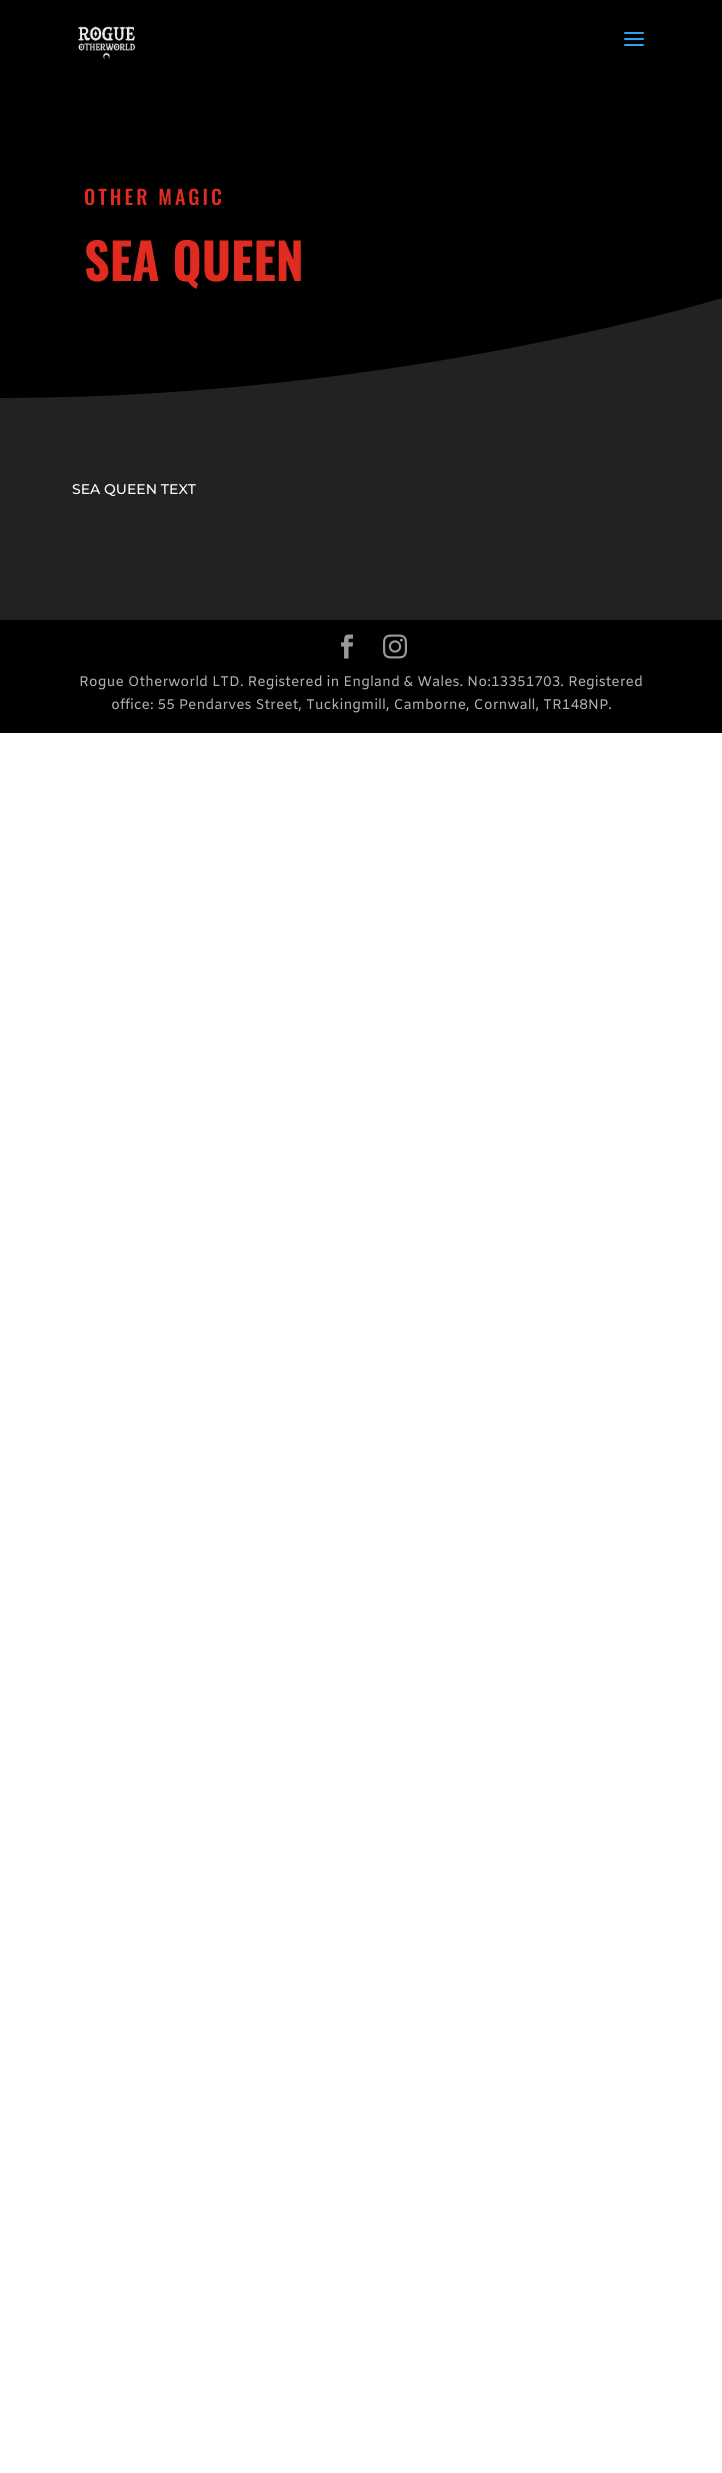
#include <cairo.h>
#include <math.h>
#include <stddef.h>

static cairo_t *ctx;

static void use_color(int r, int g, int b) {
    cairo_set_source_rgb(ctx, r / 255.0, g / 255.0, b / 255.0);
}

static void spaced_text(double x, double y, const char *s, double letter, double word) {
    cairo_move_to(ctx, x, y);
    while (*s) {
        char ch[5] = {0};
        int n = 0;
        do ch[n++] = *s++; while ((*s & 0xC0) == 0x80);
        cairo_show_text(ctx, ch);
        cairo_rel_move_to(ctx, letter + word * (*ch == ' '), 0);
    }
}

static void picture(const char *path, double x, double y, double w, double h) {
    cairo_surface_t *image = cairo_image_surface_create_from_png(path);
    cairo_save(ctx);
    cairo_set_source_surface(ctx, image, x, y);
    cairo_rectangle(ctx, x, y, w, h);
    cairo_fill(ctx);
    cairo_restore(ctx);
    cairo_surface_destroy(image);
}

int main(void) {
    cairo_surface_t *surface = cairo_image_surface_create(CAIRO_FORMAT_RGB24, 722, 2473);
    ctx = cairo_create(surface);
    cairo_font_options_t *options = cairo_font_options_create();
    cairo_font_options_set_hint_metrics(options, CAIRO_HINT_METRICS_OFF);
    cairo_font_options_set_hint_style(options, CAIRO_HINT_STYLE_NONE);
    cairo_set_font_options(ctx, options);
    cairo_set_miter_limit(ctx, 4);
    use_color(255, 255, 255);
    cairo_paint(ctx);
    use_color(0, 0, 0);
    cairo_rectangle(ctx, 0, 0, 722, 398);
    cairo_fill(ctx);
    picture("img1.png", 77, 26, 59, 33);
    picture("img2.png", 624, 32, 20, 14);
    cairo_select_font_face(ctx, "Oswald Medium", CAIRO_FONT_SLANT_NORMAL, CAIRO_FONT_WEIGHT_NORMAL);
    cairo_set_font_size(ctx, 20);
    use_color(224, 43, 32);
    spaced_text(84, 205, "OTHER MAGIC", 3, 0);
    cairo_select_font_face(ctx, "Oswald", CAIRO_FONT_SLANT_NORMAL, CAIRO_FONT_WEIGHT_BOLD);
    cairo_set_font_size(ctx, 50);
    cairo_move_to(ctx, 84, 281);
    cairo_show_text(ctx, "SEA QUEEN");
    use_color(35, 34, 32);
    cairo_new_path(ctx);
    cairo_move_to(ctx, 722, 398);
    cairo_line_to(ctx, 0, 398);
    cairo_curve_to(ctx, 399, 398, 722, 298, 722, 298);
    cairo_close_path(ctx);
    cairo_fill(ctx);
    cairo_rectangle(ctx, 0, 398, 722, 222);
    cairo_fill(ctx);
    cairo_select_font_face(ctx, "Montserrat Thin", CAIRO_FONT_SLANT_NORMAL, CAIRO_FONT_WEIGHT_NORMAL);
    cairo_set_font_size(ctx, 14);
    use_color(255, 255, 255);
    cairo_move_to(ctx, 72, 494);
    cairo_show_text(ctx, "SEA QUEEN TEXT");
    use_color(0, 0, 0);
    cairo_rectangle(ctx, 0, 620, 722, 113);
    cairo_fill(ctx);
    picture("img3.png", 341, 634, 12, 25);
    picture("img4.png", 383, 634, 24, 25);
    cairo_select_font_face(ctx, "Amiko", CAIRO_FONT_SLANT_NORMAL, CAIRO_FONT_WEIGHT_NORMAL);
    use_color(178, 178, 178);
    cairo_move_to(ctx, 79, 686);
    cairo_show_text(ctx, "Rogue Otherworld LTD. Registered in England & Wales. No:13351703. Registered");
    cairo_move_to(ctx, 111, 709);
    cairo_show_text(ctx, "office: 55 Pendarves Street, Tuckingmill, Camborne, Cornwall, TR148NP.");
    cairo_surface_write_to_png(surface, "result.png");
    cairo_font_options_destroy(options);
    cairo_destroy(ctx);
    cairo_surface_destroy(surface);
    return 0;
}
